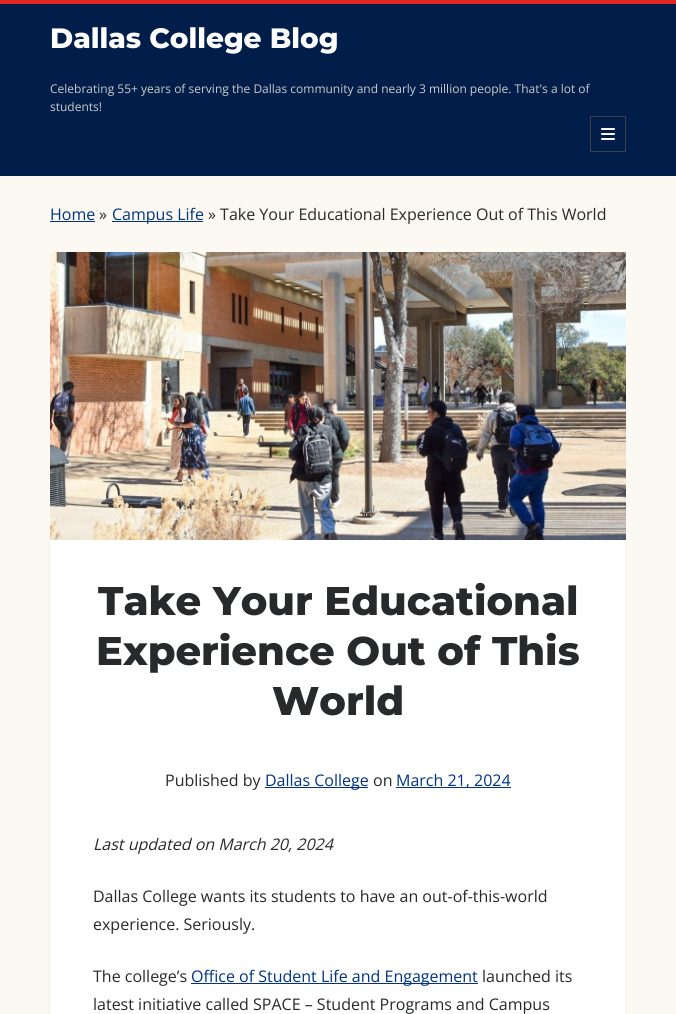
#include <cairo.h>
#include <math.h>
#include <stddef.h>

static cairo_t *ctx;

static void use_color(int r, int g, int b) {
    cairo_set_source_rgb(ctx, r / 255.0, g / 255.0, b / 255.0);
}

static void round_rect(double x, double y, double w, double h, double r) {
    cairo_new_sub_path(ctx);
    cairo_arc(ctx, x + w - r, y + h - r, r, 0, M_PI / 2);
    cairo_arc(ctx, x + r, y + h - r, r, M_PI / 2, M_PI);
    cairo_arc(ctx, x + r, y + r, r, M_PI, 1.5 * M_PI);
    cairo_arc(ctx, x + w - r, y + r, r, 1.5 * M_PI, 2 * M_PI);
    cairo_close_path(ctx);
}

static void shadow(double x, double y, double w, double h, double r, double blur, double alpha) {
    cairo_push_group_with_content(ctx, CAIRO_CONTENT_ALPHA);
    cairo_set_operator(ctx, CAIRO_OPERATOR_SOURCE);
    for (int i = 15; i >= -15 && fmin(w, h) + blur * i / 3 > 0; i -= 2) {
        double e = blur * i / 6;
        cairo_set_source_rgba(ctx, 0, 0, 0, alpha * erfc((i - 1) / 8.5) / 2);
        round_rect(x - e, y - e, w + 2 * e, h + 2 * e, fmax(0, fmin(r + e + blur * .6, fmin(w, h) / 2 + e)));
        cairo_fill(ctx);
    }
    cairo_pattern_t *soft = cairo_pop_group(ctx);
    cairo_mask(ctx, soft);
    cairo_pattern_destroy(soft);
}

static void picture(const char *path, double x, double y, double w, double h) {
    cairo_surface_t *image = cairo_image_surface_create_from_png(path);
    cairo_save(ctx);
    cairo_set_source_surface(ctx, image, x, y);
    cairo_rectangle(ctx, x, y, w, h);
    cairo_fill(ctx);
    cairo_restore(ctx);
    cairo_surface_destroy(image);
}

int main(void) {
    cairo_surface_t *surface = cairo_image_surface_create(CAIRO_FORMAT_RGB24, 676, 1014);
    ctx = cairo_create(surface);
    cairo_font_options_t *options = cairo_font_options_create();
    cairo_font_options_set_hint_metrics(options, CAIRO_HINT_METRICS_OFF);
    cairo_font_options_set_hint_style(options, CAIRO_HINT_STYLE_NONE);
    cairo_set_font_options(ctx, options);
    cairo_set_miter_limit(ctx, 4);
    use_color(0, 30, 73);
    cairo_paint(ctx);
    use_color(229, 38, 38);
    cairo_rectangle(ctx, 0, 0, 676, 4);
    cairo_fill(ctx);
    cairo_select_font_face(ctx, "Montserrat ExtraBold", CAIRO_FONT_SLANT_NORMAL, CAIRO_FONT_WEIGHT_NORMAL);
    cairo_set_font_size(ctx, 28);
    use_color(255, 255, 255);
    cairo_move_to(ctx, 50, 48);
    cairo_show_text(ctx, "Dallas College Blog");
    cairo_select_font_face(ctx, "Open Sans", CAIRO_FONT_SLANT_NORMAL, CAIRO_FONT_WEIGHT_NORMAL);
    cairo_set_font_size(ctx, 12);
    use_color(204, 204, 204);
    cairo_move_to(ctx, 50, 93);
    cairo_show_text(ctx, "Celebrating 55+ years of serving the Dallas community and nearly 3 million people. That's a lot of");
    cairo_move_to(ctx, 50, 111);
    cairo_show_text(ctx, "students!");
    cairo_rectangle(ctx, 590.5, 116.5, 35, 35);
    use_color(62, 65, 69);
    cairo_set_line_width(ctx, 1);
    cairo_stroke(ctx);
    picture("img1.png", 601, 128, 14, 12);
    use_color(252, 249, 242);
    cairo_rectangle(ctx, 0, 176, 676, 838);
    cairo_fill(ctx);
    cairo_set_font_size(ctx, 16);
    use_color(0, 51, 133);
    cairo_move_to(ctx, 50, 220);
    cairo_show_text(ctx, "Home");
    cairo_rectangle(ctx, 50, 221, 45, 1);
    cairo_fill(ctx);
    use_color(39, 41, 43);
    cairo_move_to(ctx, 99, 220);
    cairo_show_text(ctx, "»");
    use_color(0, 51, 133);
    cairo_rectangle(ctx, 112, 221, 91, 1);
    cairo_fill(ctx);
    cairo_move_to(ctx, 112, 220);
    cairo_show_text(ctx, "Campus Life");
    use_color(39, 41, 43);
    cairo_move_to(ctx, 208, 220);
    cairo_show_text(ctx, "» Take Your Educational Experience Out of This World");
    use_color(39, 43, 47);
    shadow(50, 540, 576, 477, 0, 1, 0.1);
    picture("img2.png", 50, 252, 576, 288);
    use_color(255, 255, 255);
    cairo_rectangle(ctx, 50, 540, 576, 474);
    cairo_fill(ctx);
    cairo_select_font_face(ctx, "Montserrat ExtraBold", CAIRO_FONT_SLANT_NORMAL, CAIRO_FONT_WEIGHT_NORMAL);
    cairo_set_font_size(ctx, 40);
    use_color(39, 41, 43);
    cairo_move_to(ctx, 98, 615);
    cairo_show_text(ctx, "Take Your Educational");
    cairo_move_to(ctx, 96, 665);
    cairo_show_text(ctx, "Experience Out of This");
    cairo_move_to(ctx, 272, 715);
    cairo_show_text(ctx, "World");
    cairo_select_font_face(ctx, "Open Sans", CAIRO_FONT_SLANT_NORMAL, CAIRO_FONT_WEIGHT_NORMAL);
    cairo_set_font_size(ctx, 16);
    cairo_move_to(ctx, 165, 786);
    cairo_show_text(ctx, "Published by");
    use_color(0, 51, 133);
    cairo_rectangle(ctx, 265, 787, 103, 1);
    cairo_fill(ctx);
    cairo_move_to(ctx, 265, 786);
    cairo_show_text(ctx, "Dallas College");
    use_color(39, 41, 43);
    cairo_move_to(ctx, 373, 786);
    cairo_show_text(ctx, "on");
    use_color(0, 51, 133);
    cairo_rectangle(ctx, 396, 787, 115, 1);
    cairo_fill(ctx);
    cairo_move_to(ctx, 396, 786);
    cairo_show_text(ctx, "March 21, 2024");
    cairo_select_font_face(ctx, "Open Sans", CAIRO_FONT_SLANT_ITALIC, CAIRO_FONT_WEIGHT_NORMAL);
    use_color(39, 41, 43);
    cairo_move_to(ctx, 93, 850);
    cairo_show_text(ctx, "Last updated on March 20, 2024");
    cairo_select_font_face(ctx, "Open Sans", CAIRO_FONT_SLANT_NORMAL, CAIRO_FONT_WEIGHT_NORMAL);
    cairo_move_to(ctx, 93, 902);
    cairo_show_text(ctx, "Dallas College wants its students to have an out-of-this-world");
    cairo_move_to(ctx, 93, 930);
    cairo_show_text(ctx, "experience. Seriously.");
    cairo_move_to(ctx, 93, 982);
    cairo_show_text(ctx, "The college’s");
    use_color(0, 51, 133);
    cairo_rectangle(ctx, 191, 983, 287, 1);
    cairo_fill(ctx);
    cairo_move_to(ctx, 191, 982);
    cairo_show_text(ctx, "Office of Student Life and Engagement");
    use_color(39, 41, 43);
    cairo_move_to(ctx, 482, 982);
    cairo_show_text(ctx, "launched its");
    cairo_move_to(ctx, 93, 1010);
    cairo_show_text(ctx, "latest initiative called SPACE – Student Programs and Campus");
    cairo_surface_write_to_png(surface, "result.png");
    cairo_font_options_destroy(options);
    cairo_destroy(ctx);
    cairo_surface_destroy(surface);
    return 0;
}
